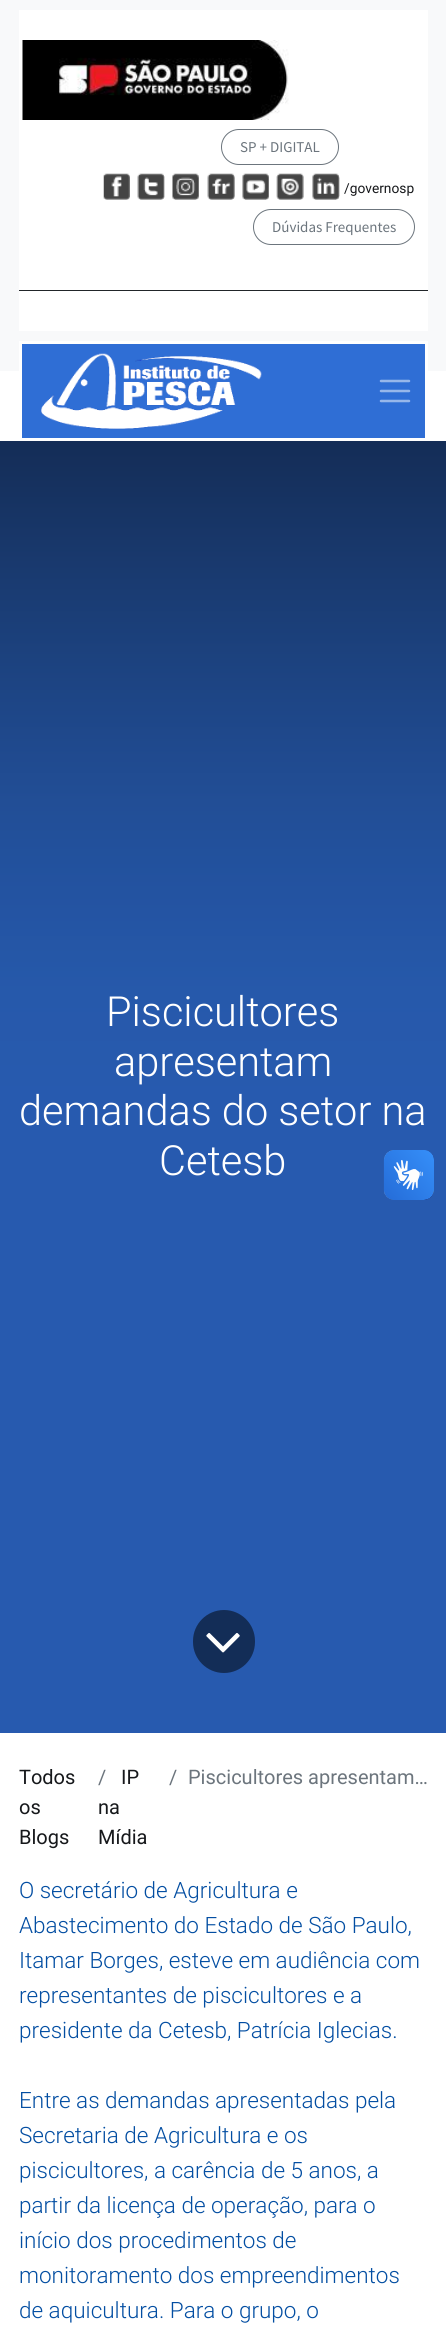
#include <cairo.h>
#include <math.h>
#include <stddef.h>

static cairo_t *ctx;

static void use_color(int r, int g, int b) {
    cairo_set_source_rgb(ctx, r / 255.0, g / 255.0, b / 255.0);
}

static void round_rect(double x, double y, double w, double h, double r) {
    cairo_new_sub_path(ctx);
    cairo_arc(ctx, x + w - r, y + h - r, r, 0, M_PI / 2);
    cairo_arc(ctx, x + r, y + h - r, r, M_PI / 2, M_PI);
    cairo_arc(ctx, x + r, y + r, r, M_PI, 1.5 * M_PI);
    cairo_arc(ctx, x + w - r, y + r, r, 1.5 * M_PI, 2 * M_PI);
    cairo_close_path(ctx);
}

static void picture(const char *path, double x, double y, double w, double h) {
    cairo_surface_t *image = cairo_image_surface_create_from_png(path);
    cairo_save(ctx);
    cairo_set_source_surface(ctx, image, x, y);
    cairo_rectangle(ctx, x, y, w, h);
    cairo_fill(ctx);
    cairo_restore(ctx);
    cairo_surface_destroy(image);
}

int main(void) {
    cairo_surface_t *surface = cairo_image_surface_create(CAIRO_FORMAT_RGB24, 446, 2348);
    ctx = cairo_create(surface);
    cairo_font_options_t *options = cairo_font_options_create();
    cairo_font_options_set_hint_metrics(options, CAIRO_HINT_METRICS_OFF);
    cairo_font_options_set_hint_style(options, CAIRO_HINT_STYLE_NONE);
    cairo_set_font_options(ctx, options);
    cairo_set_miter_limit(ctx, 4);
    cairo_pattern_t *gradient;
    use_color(255, 255, 255);
    cairo_paint(ctx);
    use_color(248, 249, 250);
    cairo_rectangle(ctx, 0, 0, 446, 371);
    cairo_fill(ctx);
    use_color(255, 255, 255);
    cairo_rectangle(ctx, 19, 10, 409, 321);
    cairo_fill(ctx);
    picture("img1.png", 22, 40, 267, 80);
    round_rect(221.5, 129.5, 117, 35, 17.5);
    use_color(108, 117, 125);
    cairo_set_line_width(ctx, 1);
    cairo_stroke(ctx);
    cairo_select_font_face(ctx, "Source Sans Pro", CAIRO_FONT_SLANT_NORMAL, CAIRO_FONT_WEIGHT_NORMAL);
    cairo_set_font_size(ctx, 15);
    cairo_move_to(ctx, 240, 152);
    cairo_show_text(ctx, "SP + DIGITAL");
    picture("img2.png", 103, 173, 27, 27);
    picture("img3.png", 137, 173, 28, 27);
    picture("img4.png", 172, 173, 27, 27);
    picture("img5.png", 207, 173, 28, 27);
    picture("img6.png", 242, 173, 27, 27);
    picture("img7.png", 276, 173, 28, 27);
    picture("img8.png", 312, 173, 28, 27);
    cairo_select_font_face(ctx, "Roboto", CAIRO_FONT_SLANT_NORMAL, CAIRO_FONT_WEIGHT_NORMAL);
    cairo_set_font_size(ctx, 13.75);
    use_color(22, 24, 27);
    cairo_move_to(ctx, 344, 193);
    cairo_show_text(ctx, "/governosp");
    round_rect(253.5, 209.5, 161, 35, 17.5);
    use_color(108, 117, 125);
    cairo_stroke(ctx);
    cairo_select_font_face(ctx, "Source Sans Pro", CAIRO_FONT_SLANT_NORMAL, CAIRO_FONT_WEIGHT_NORMAL);
    cairo_set_font_size(ctx, 15);
    cairo_move_to(ctx, 272, 232);
    cairo_show_text(ctx, "Dúvidas Frequentes");
    use_color(33, 37, 41);
    cairo_rectangle(ctx, 19, 290, 409, 1);
    cairo_fill(ctx);
    use_color(47, 110, 213);
    cairo_rectangle(ctx, 20.5, 342.5, 406, 97);
    cairo_fill_preserve(ctx);
    use_color(255, 255, 255);
    cairo_set_line_width(ctx, 3);
    cairo_stroke(ctx);
    picture("img9.png", 41, 353, 221, 76);
    cairo_new_path(ctx);
    cairo_move_to(ctx, 381, 381);
    cairo_line_to(ctx, 409, 381);
    cairo_move_to(ctx, 381, 391);
    cairo_line_to(ctx, 409, 391);
    cairo_move_to(ctx, 381, 401);
    cairo_line_to(ctx, 409, 401);
    use_color(151, 183, 234);
    cairo_set_line_width(ctx, 2.5);
    cairo_set_line_cap(ctx, CAIRO_LINE_CAP_ROUND);
    cairo_stroke(ctx);
    use_color(39, 90, 175);
    cairo_rectangle(ctx, 0, 1086, 446, 647);
    cairo_fill(ctx);
    gradient = cairo_pattern_create_linear(223, 441, 223, 1086);
    cairo_pattern_add_color_stop_rgba(gradient, 0, 0.078, 0.176, 0.341, 1);
    cairo_pattern_add_color_stop_rgba(gradient, 0.19, 0.098, 0.224, 0.431, 1);
    cairo_pattern_add_color_stop_rgba(gradient, 0.34, 0.11, 0.259, 0.498, 1);
    cairo_pattern_add_color_stop_rgba(gradient, 0.47, 0.122, 0.286, 0.553, 1);
    cairo_pattern_add_color_stop_rgba(gradient, 0.56, 0.133, 0.306, 0.588, 1);
    cairo_pattern_add_color_stop_rgba(gradient, 0.65, 0.133, 0.318, 0.616, 1);
    cairo_pattern_add_color_stop_rgba(gradient, 0.73, 0.141, 0.329, 0.639, 1);
    cairo_pattern_add_color_stop_rgba(gradient, 0.8, 0.145, 0.341, 0.655, 1);
    cairo_pattern_add_color_stop_rgba(gradient, 0.86, 0.149, 0.349, 0.671, 1);
    cairo_pattern_add_color_stop_rgba(gradient, 0.91, 0.153, 0.349, 0.675, 1);
    cairo_pattern_add_color_stop_rgba(gradient, 0.95, 0.153, 0.353, 0.678, 1);
    cairo_pattern_add_color_stop_rgba(gradient, 0.98, 0.153, 0.353, 0.682, 1);
    cairo_pattern_add_color_stop_rgba(gradient, 1, 0.153, 0.353, 0.682, 1);
    cairo_set_source(ctx, gradient);
    cairo_pattern_destroy(gradient);
    cairo_rectangle(ctx, 0, 441, 446, 645);
    cairo_fill(ctx);
    cairo_select_font_face(ctx, "Roboto Light", CAIRO_FONT_SLANT_NORMAL, CAIRO_FONT_WEIGHT_NORMAL);
    cairo_set_font_size(ctx, 41.5);
    use_color(255, 255, 255);
    cairo_move_to(ctx, 106, 1026);
    cairo_show_text(ctx, "Piscicultores");
    cairo_move_to(ctx, 114, 1076);
    cairo_show_text(ctx, "apresentam");
    cairo_move_to(ctx, 19, 1125);
    cairo_show_text(ctx, "demandas do setor na");
    cairo_move_to(ctx, 159, 1175);
    cairo_show_text(ctx, "Cetesb");
    use_color(19, 45, 87);
    round_rect(193, 1610, 62, 63, 31);
    cairo_fill(ctx);
    picture("img10.png", 206, 1633, 34, 20);
    cairo_select_font_face(ctx, "Roboto", CAIRO_FONT_SLANT_NORMAL, CAIRO_FONT_WEIGHT_NORMAL);
    cairo_set_font_size(ctx, 20);
    use_color(22, 24, 27);
    cairo_move_to(ctx, 19, 1784);
    cairo_show_text(ctx, "Todos");
    cairo_move_to(ctx, 19, 1814);
    cairo_show_text(ctx, "os");
    cairo_move_to(ctx, 19, 1844);
    cairo_show_text(ctx, "Blogs");
    use_color(108, 117, 125);
    cairo_move_to(ctx, 98, 1784);
    cairo_show_text(ctx, "/");
    use_color(22, 24, 27);
    cairo_move_to(ctx, 121, 1784);
    cairo_show_text(ctx, "IP");
    cairo_move_to(ctx, 98, 1814);
    cairo_show_text(ctx, "na");
    cairo_move_to(ctx, 98, 1844);
    cairo_show_text(ctx, "Mídia");
    use_color(108, 117, 125);
    cairo_move_to(ctx, 169, 1784);
    cairo_show_text(ctx, "/");
    cairo_move_to(ctx, 188, 1784);
    cairo_show_text(ctx, "Piscicultores apresentam…");
    cairo_select_font_face(ctx, "Roboto Light", CAIRO_FONT_SLANT_NORMAL, CAIRO_FONT_WEIGHT_NORMAL);
    cairo_set_font_size(ctx, 22.5);
    use_color(3, 78, 162);
    cairo_move_to(ctx, 19, 1898);
    cairo_show_text(ctx, "O secretário de Agricultura e");
    cairo_move_to(ctx, 19, 1933);
    cairo_show_text(ctx, "Abastecimento do Estado de São Paulo,");
    cairo_move_to(ctx, 19, 1968);
    cairo_show_text(ctx, "Itamar Borges, esteve em audiência com");
    cairo_move_to(ctx, 19, 2003);
    cairo_show_text(ctx, "representantes de piscicultores e a");
    cairo_move_to(ctx, 19, 2038);
    cairo_show_text(ctx, "presidente da Cetesb, Patrícia Iglecias.");
    cairo_move_to(ctx, 19, 2108);
    cairo_show_text(ctx, "Entre as demandas apresentadas pela");
    cairo_move_to(ctx, 19, 2143);
    cairo_show_text(ctx, "Secretaria de Agricultura e os");
    cairo_move_to(ctx, 19, 2178);
    cairo_show_text(ctx, "piscicultores, a carência de 5 anos, a");
    cairo_move_to(ctx, 19, 2213);
    cairo_show_text(ctx, "partir da licença de operação, para o");
    cairo_move_to(ctx, 19, 2248);
    cairo_show_text(ctx, "início dos procedimentos de");
    cairo_move_to(ctx, 19, 2283);
    cairo_show_text(ctx, "monitoramento dos empreendimentos");
    cairo_move_to(ctx, 19, 2318);
    cairo_show_text(ctx, "de aquicultura. Para o grupo, o");
    picture("img11.png", 383, 1150, 51, 50);
    picture("img12.png", 384, 1150, 50, 50);
    cairo_surface_write_to_png(surface, "result.png");
    cairo_font_options_destroy(options);
    cairo_destroy(ctx);
    cairo_surface_destroy(surface);
    return 0;
}
